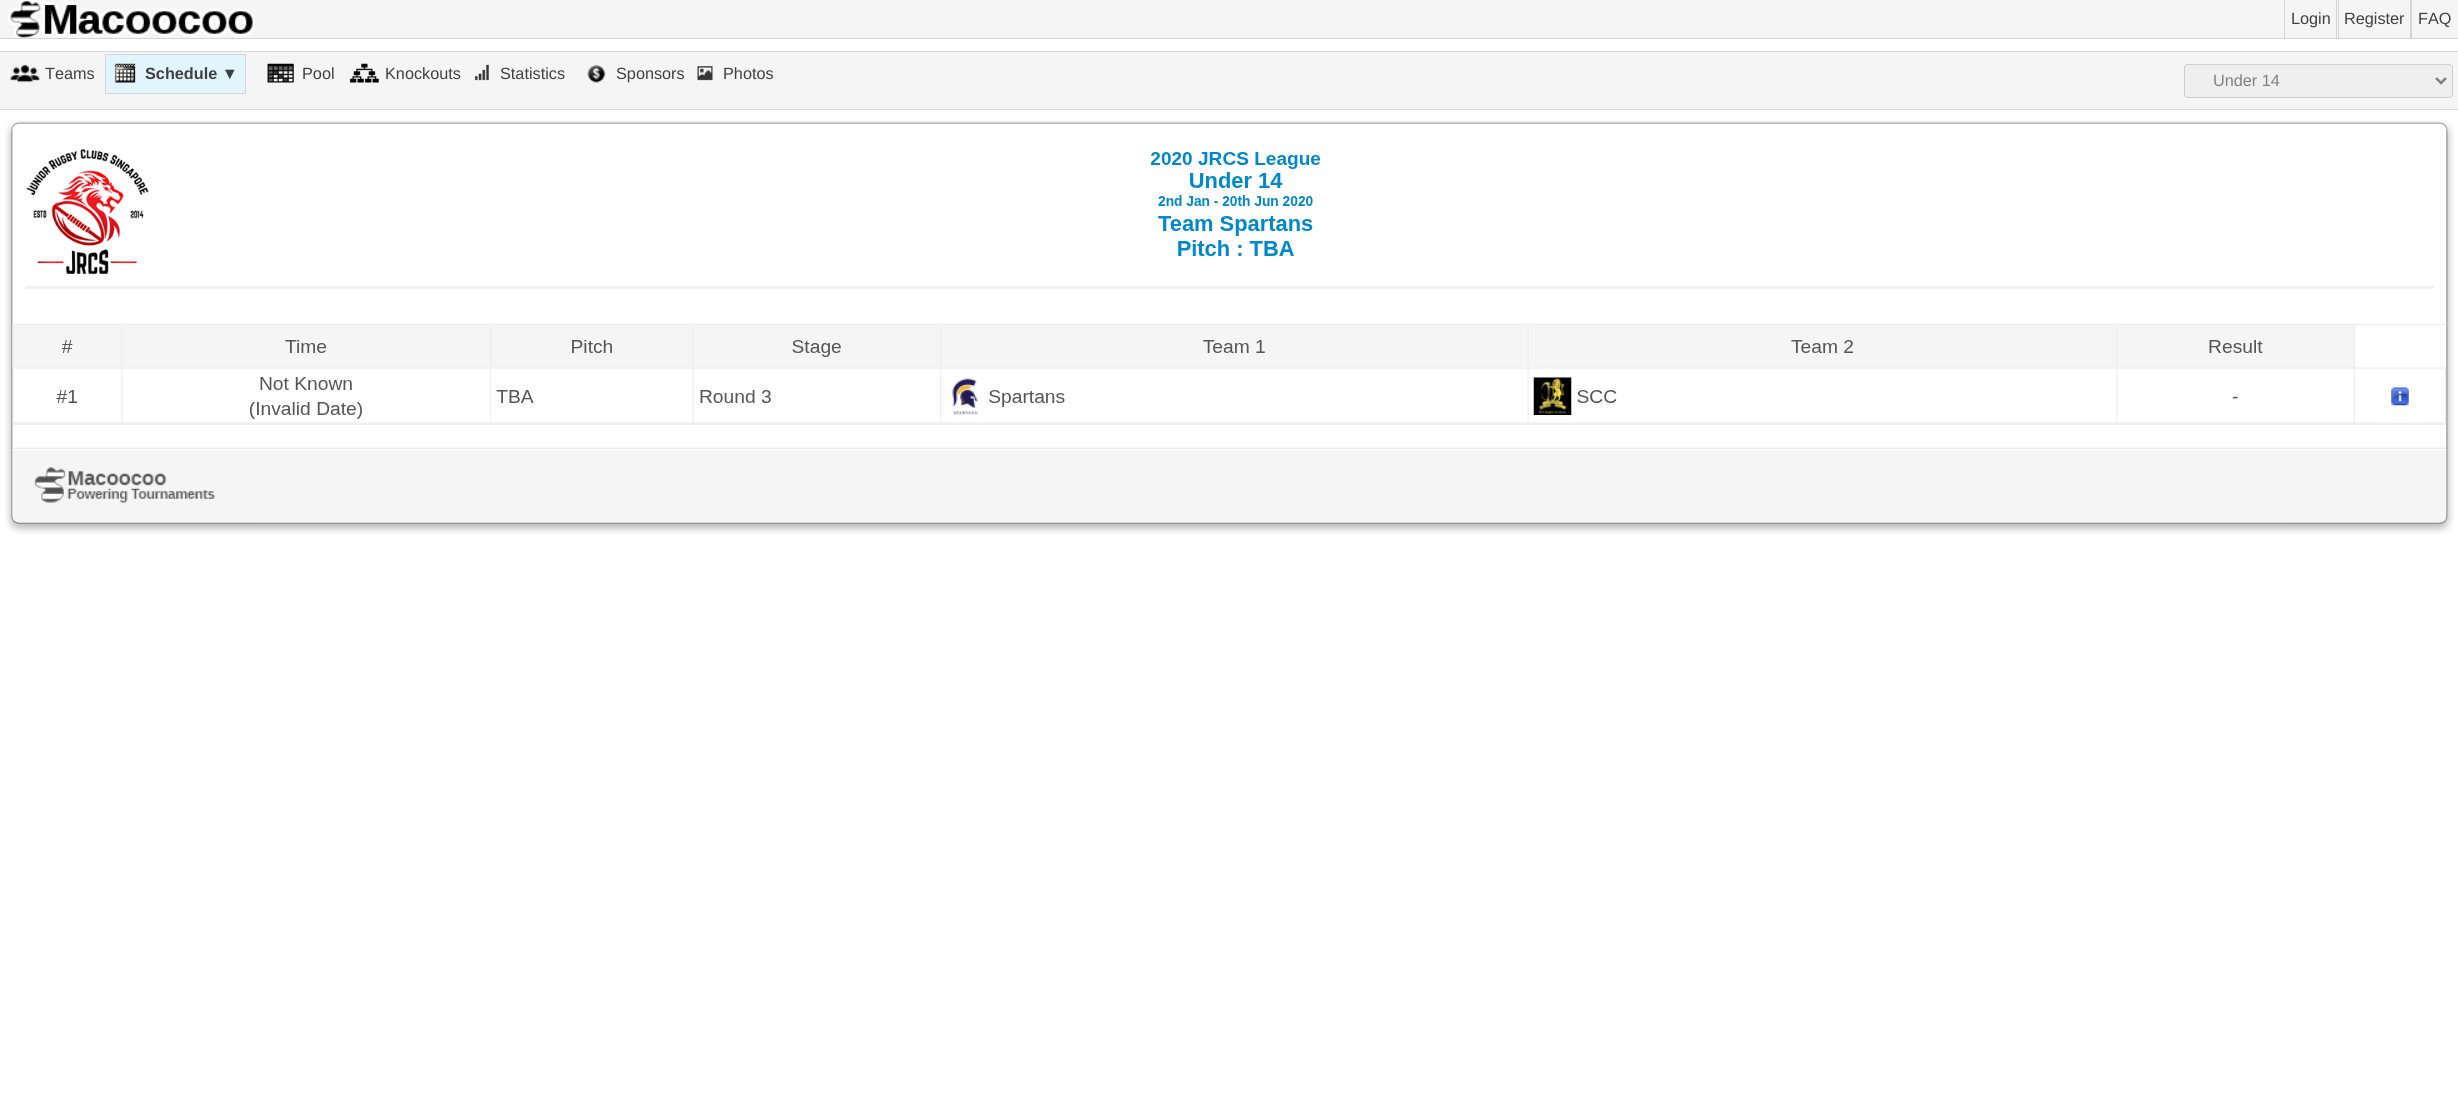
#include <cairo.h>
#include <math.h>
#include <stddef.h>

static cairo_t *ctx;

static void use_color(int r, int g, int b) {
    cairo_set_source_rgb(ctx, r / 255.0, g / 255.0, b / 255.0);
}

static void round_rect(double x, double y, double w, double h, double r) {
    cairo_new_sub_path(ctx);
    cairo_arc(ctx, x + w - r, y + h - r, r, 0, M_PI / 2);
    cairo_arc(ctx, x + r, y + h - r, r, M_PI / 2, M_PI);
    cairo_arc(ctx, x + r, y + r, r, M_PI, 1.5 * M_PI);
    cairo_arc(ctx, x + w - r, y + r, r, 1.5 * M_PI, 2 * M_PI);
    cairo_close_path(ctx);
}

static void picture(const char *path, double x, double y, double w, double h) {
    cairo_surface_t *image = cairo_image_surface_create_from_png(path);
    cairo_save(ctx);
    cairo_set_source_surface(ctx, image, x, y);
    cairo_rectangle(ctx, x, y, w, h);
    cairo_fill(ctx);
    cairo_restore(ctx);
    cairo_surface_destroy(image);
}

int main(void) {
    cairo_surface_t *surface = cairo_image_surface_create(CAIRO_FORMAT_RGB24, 2458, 1118);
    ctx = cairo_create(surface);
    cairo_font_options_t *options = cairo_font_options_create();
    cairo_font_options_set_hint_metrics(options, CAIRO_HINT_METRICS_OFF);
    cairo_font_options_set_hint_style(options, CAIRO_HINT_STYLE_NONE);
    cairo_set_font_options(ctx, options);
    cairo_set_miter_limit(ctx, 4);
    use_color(255, 255, 255);
    cairo_paint(ctx);
    use_color(245, 245, 245);
    cairo_rectangle(ctx, 0, 0, 2458, 38);
    cairo_fill(ctx);
    use_color(213, 213, 213);
    cairo_rectangle(ctx, 0, 38, 2458, 1);
    cairo_fill(ctx);
    picture("img1.png", 7, 0, 248, 38);
    cairo_rectangle(ctx, 2338, 0, 1, 38);
    cairo_fill(ctx);
    cairo_rectangle(ctx, 2284, 0, 1, 38);
    cairo_fill(ctx);
    cairo_select_font_face(ctx, "Liberation Sans", CAIRO_FONT_SLANT_NORMAL, CAIRO_FONT_WEIGHT_NORMAL);
    cairo_set_font_size(ctx, 16.25);
    use_color(64, 64, 64);
    cairo_move_to(ctx, 2291, 24);
    cairo_show_text(ctx, "Login");
    use_color(213, 213, 213);
    cairo_rectangle(ctx, 2410, 0, 2, 38);
    cairo_fill(ctx);
    cairo_rectangle(ctx, 2336, 0, 1, 38);
    cairo_fill(ctx);
    use_color(64, 64, 64);
    cairo_move_to(ctx, 2344, 24);
    cairo_show_text(ctx, "Register");
    cairo_move_to(ctx, 2418, 24);
    cairo_show_text(ctx, "FAQ");
    use_color(245, 245, 245);
    cairo_rectangle(ctx, 0, 52, 2458, 57);
    cairo_fill(ctx);
    use_color(213, 213, 213);
    cairo_rectangle(ctx, 0, 51, 2458, 1);
    cairo_fill(ctx);
    cairo_rectangle(ctx, 0, 109, 2458, 1);
    cairo_fill(ctx);
    picture("img2.png", 10, 64, 31, 19);
    use_color(64, 64, 64);
    cairo_move_to(ctx, 45, 79);
    cairo_show_text(ctx, "Teams");
    use_color(225, 245, 254);
    cairo_rectangle(ctx, 105.5, 54.5, 140, 39);
    cairo_fill_preserve(ctx);
    use_color(213, 213, 213);
    cairo_set_line_width(ctx, 1);
    cairo_stroke(ctx);
    picture("img3.png", 114, 63, 22, 20);
    cairo_select_font_face(ctx, "Liberation Sans", CAIRO_FONT_SLANT_NORMAL, CAIRO_FONT_WEIGHT_BOLD);
    use_color(64, 64, 64);
    cairo_move_to(ctx, 145, 79);
    cairo_show_text(ctx, "Schedule ▼");
    picture("img4.png", 267, 63, 27, 20);
    cairo_select_font_face(ctx, "Liberation Sans", CAIRO_FONT_SLANT_NORMAL, CAIRO_FONT_WEIGHT_NORMAL);
    cairo_move_to(ctx, 302, 79);
    cairo_show_text(ctx, "Pool");
    picture("img5.png", 349, 63, 30, 20);
    cairo_move_to(ctx, 385, 79);
    cairo_show_text(ctx, "Knockouts");
    picture("img6.png", 474, 64, 15, 17);
    cairo_move_to(ctx, 500, 79);
    cairo_show_text(ctx, "Statistics");
    picture("img7.png", 587, 64, 19, 19);
    cairo_move_to(ctx, 616, 79);
    cairo_show_text(ctx, "Sponsors");
    picture("img8.png", 697, 66, 16, 15);
    cairo_move_to(ctx, 723, 79);
    cairo_show_text(ctx, "Photos");
    use_color(239, 239, 239);
    round_rect(2184.5, 64.5, 268, 33, 3.5);
    cairo_fill_preserve(ctx);
    use_color(204, 204, 204);
    cairo_stroke(ctx);
    cairo_new_path(ctx);
    cairo_move_to(ctx, 2436, 78);
    cairo_line_to(ctx, 2441, 83);
    cairo_line_to(ctx, 2446, 78);
    use_color(128, 128, 128);
    cairo_set_line_width(ctx, 2.5);
    cairo_stroke(ctx);
    cairo_move_to(ctx, 2213, 86);
    cairo_show_text(ctx, "Under 14");
    picture("img9.png", 5, 120, 2449, 414);
    cairo_surface_write_to_png(surface, "result.png");
    cairo_font_options_destroy(options);
    cairo_destroy(ctx);
    cairo_surface_destroy(surface);
    return 0;
}
